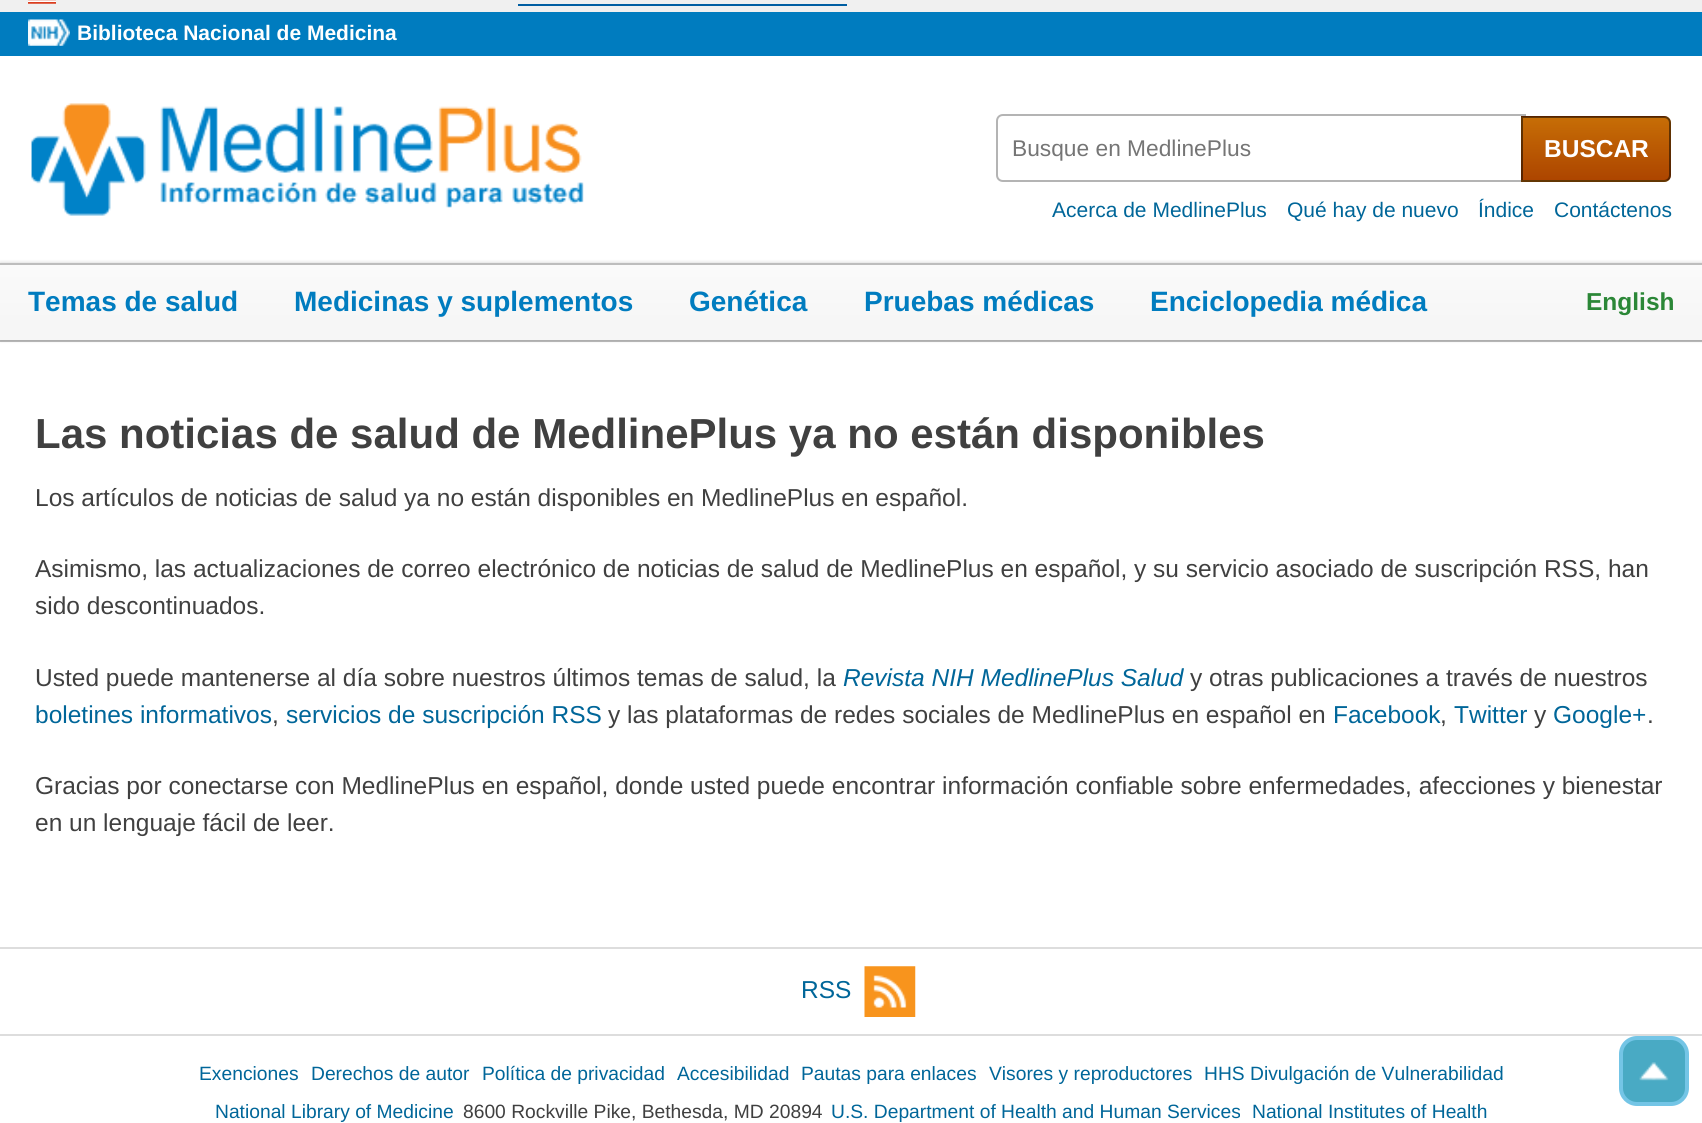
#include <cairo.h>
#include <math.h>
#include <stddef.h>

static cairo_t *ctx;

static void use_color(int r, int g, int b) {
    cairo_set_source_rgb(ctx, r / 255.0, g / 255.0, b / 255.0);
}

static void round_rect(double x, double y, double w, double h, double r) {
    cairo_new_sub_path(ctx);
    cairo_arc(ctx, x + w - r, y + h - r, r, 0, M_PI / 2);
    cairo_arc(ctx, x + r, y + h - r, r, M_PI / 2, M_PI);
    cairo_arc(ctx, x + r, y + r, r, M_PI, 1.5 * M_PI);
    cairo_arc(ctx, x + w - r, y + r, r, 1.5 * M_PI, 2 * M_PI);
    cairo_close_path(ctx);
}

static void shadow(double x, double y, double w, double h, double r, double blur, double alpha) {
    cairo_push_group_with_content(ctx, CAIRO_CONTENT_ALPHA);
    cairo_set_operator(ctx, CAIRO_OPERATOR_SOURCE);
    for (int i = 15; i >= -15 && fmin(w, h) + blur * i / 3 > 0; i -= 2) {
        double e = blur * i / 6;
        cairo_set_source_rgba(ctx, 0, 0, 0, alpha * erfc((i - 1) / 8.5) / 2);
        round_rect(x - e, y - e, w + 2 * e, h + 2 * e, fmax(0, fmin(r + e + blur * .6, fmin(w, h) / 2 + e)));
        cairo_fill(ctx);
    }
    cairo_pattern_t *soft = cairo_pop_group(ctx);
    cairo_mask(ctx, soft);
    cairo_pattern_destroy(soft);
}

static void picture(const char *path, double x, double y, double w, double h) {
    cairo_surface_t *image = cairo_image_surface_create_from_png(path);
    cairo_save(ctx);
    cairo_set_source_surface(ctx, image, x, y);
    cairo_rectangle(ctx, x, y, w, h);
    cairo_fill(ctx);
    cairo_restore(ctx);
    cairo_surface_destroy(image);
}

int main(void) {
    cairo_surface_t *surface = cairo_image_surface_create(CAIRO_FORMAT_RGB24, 1702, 1123);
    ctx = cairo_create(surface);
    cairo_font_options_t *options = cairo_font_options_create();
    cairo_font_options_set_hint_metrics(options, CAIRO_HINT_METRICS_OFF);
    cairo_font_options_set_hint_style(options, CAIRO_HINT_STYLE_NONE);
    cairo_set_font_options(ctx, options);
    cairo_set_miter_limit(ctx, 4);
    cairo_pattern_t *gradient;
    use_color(255, 255, 255);
    cairo_paint(ctx);
    use_color(240, 240, 240);
    cairo_rectangle(ctx, 0, 0, 1702, 12);
    cairo_fill(ctx);
    picture("img1.png", 28, 0, 28, 4);
    use_color(0, 94, 162);
    cairo_rectangle(ctx, 518, 4, 329, 2);
    cairo_fill(ctx);
    use_color(0, 124, 191);
    cairo_rectangle(ctx, 0, 12, 1702, 44);
    cairo_fill(ctx);
    picture("img2.png", 28, 19, 42, 27);
    cairo_select_font_face(ctx, "Liberation Sans", CAIRO_FONT_SLANT_NORMAL, CAIRO_FONT_WEIGHT_BOLD);
    cairo_set_font_size(ctx, 21);
    use_color(255, 255, 255);
    cairo_move_to(ctx, 77, 40);
    cairo_show_text(ctx, "Biblioteca Nacional de Medicina");
    picture("img3.png", 31, 103, 553, 113);
    use_color(189, 189, 189);
    cairo_rectangle(ctx, 0, 340, 1702, 2);
    cairo_fill(ctx);
    use_color(0, 0, 0);
    shadow(0, 263, 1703, 77, 0, 2, 0.2);
    gradient = cairo_pattern_create_linear(851, 264, 851, 340);
    cairo_pattern_add_color_stop_rgba(gradient, 0.1, 0.98, 0.98, 0.98, 1);
    cairo_pattern_add_color_stop_rgba(gradient, 0.75, 0.965, 0.965, 0.965, 1);
    cairo_set_source(ctx, gradient);
    cairo_pattern_destroy(gradient);
    cairo_rectangle(ctx, 0, 265, 1702, 75);
    cairo_fill(ctx);
    use_color(189, 189, 189);
    cairo_rectangle(ctx, 0, 263, 1702, 2);
    cairo_fill(ctx);
    cairo_new_path(ctx);
    cairo_move_to(ctx, 1003, 115);
    cairo_line_to(ctx, 1525, 115);
    cairo_line_to(ctx, 1525, 181);
    cairo_line_to(ctx, 1003, 181);
    cairo_curve_to(ctx, 999.5, 181, 997, 178.5, 997, 175);
    cairo_line_to(ctx, 997, 121);
    cairo_curve_to(ctx, 997, 117.5, 999.5, 115, 1003, 115);
    cairo_close_path(ctx);
    use_color(180, 180, 180);
    cairo_stroke(ctx);
    cairo_select_font_face(ctx, "Liberation Sans", CAIRO_FONT_SLANT_NORMAL, CAIRO_FONT_WEIGHT_NORMAL);
    cairo_set_font_size(ctx, 22.75);
    use_color(117, 117, 117);
    cairo_move_to(ctx, 1012, 156);
    cairo_show_text(ctx, "Busque en MedlinePlus");
    cairo_save(ctx);
    cairo_new_path(ctx);
    cairo_move_to(ctx, 1521, 116);
    cairo_line_to(ctx, 1664, 116);
    cairo_curve_to(ctx, 1668, 116, 1671, 119, 1671, 123);
    cairo_line_to(ctx, 1671, 175);
    cairo_curve_to(ctx, 1671, 179, 1668, 182, 1664, 182);
    cairo_line_to(ctx, 1521, 182);
    cairo_close_path(ctx);
    cairo_clip(ctx);
    gradient = cairo_pattern_create_linear(1596, 54, 1596, 117);
    cairo_pattern_add_color_stop_rgba(gradient, 0, 0.78, 0.431, 0.024, 1);
    cairo_pattern_add_color_stop_rgba(gradient, 1, 0.678, 0.271, 0, 1);
    cairo_set_source(ctx, gradient);
    cairo_pattern_destroy(gradient);
    cairo_rectangle(ctx, 1521, 116, 150, 1);
    cairo_fill(ctx);
    gradient = cairo_pattern_create_linear(1596, 117, 1596, 180);
    cairo_pattern_add_color_stop_rgba(gradient, 0, 0.78, 0.431, 0.024, 1);
    cairo_pattern_add_color_stop_rgba(gradient, 1, 0.678, 0.271, 0, 1);
    cairo_set_source(ctx, gradient);
    cairo_pattern_destroy(gradient);
    cairo_rectangle(ctx, 1521, 117, 150, 63);
    cairo_fill(ctx);
    gradient = cairo_pattern_create_linear(1596, 180, 1596, 243);
    cairo_pattern_add_color_stop_rgba(gradient, 0, 0.78, 0.431, 0.024, 1);
    cairo_pattern_add_color_stop_rgba(gradient, 1, 0.678, 0.271, 0, 1);
    cairo_set_source(ctx, gradient);
    cairo_pattern_destroy(gradient);
    cairo_rectangle(ctx, 1521, 180, 150, 2);
    cairo_fill(ctx);
    cairo_restore(ctx);
    cairo_new_path(ctx);
    cairo_move_to(ctx, 1522, 117);
    cairo_line_to(ctx, 1664, 117);
    cairo_curve_to(ctx, 1667.5, 117, 1670, 119.5, 1670, 123);
    cairo_line_to(ctx, 1670, 175);
    cairo_curve_to(ctx, 1670, 178.5, 1667.5, 181, 1664, 181);
    cairo_line_to(ctx, 1522, 181);
    cairo_close_path(ctx);
    cairo_set_source_rgba(ctx, 0, 0, 0, 0.5);
    cairo_stroke(ctx);
    cairo_select_font_face(ctx, "Liberation Sans", CAIRO_FONT_SLANT_NORMAL, CAIRO_FONT_WEIGHT_BOLD);
    cairo_set_font_size(ctx, 24.5);
    use_color(255, 255, 255);
    cairo_move_to(ctx, 1544, 157);
    cairo_show_text(ctx, "BUSCAR");
    cairo_select_font_face(ctx, "Liberation Sans", CAIRO_FONT_SLANT_NORMAL, CAIRO_FONT_WEIGHT_NORMAL);
    cairo_set_font_size(ctx, 21);
    use_color(0, 102, 153);
    cairo_move_to(ctx, 1052, 217);
    cairo_show_text(ctx, "Acerca de MedlinePlus");
    cairo_move_to(ctx, 1287, 217);
    cairo_show_text(ctx, "Qué hay de nuevo");
    cairo_move_to(ctx, 1478, 217);
    cairo_show_text(ctx, "Índice");
    cairo_move_to(ctx, 1554, 217);
    cairo_show_text(ctx, "Contáctenos");
    cairo_select_font_face(ctx, "Liberation Sans", CAIRO_FONT_SLANT_NORMAL, CAIRO_FONT_WEIGHT_BOLD);
    cairo_set_font_size(ctx, 28);
    use_color(0, 124, 191);
    cairo_move_to(ctx, 28, 311);
    cairo_show_text(ctx, "Temas de salud");
    cairo_move_to(ctx, 294, 311);
    cairo_show_text(ctx, "Medicinas y suplementos");
    cairo_move_to(ctx, 689, 311);
    cairo_show_text(ctx, "Genética");
    cairo_move_to(ctx, 864, 311);
    cairo_show_text(ctx, "Pruebas médicas");
    cairo_move_to(ctx, 1150, 311);
    cairo_show_text(ctx, "Enciclopedia médica");
    cairo_set_font_size(ctx, 24.5);
    use_color(43, 135, 55);
    cairo_move_to(ctx, 1586, 310);
    cairo_show_text(ctx, "English");
    cairo_set_font_size(ctx, 42);
    use_color(64, 64, 64);
    cairo_move_to(ctx, 35, 448);
    cairo_show_text(ctx, "Las noticias de salud de MedlinePlus ya no están disponibles");
    cairo_select_font_face(ctx, "Liberation Sans", CAIRO_FONT_SLANT_NORMAL, CAIRO_FONT_WEIGHT_NORMAL);
    cairo_set_font_size(ctx, 24.5);
    cairo_move_to(ctx, 35, 506);
    cairo_show_text(ctx, "Los artículos de noticias de salud ya no están disponibles en MedlinePlus en español.");
    cairo_move_to(ctx, 35, 577);
    cairo_show_text(ctx, "Asimismo, las actualizaciones de correo electrónico de noticias de salud de MedlinePlus en español, y su servicio asociado de suscripción RSS, han");
    cairo_move_to(ctx, 35, 614);
    cairo_show_text(ctx, "sido descontinuados.");
    cairo_move_to(ctx, 35, 686);
    cairo_show_text(ctx, "Usted puede mantenerse al día sobre nuestros últimos temas de salud, la");
    cairo_select_font_face(ctx, "Liberation Sans", CAIRO_FONT_SLANT_ITALIC, CAIRO_FONT_WEIGHT_NORMAL);
    use_color(0, 102, 153);
    cairo_move_to(ctx, 843, 686);
    cairo_show_text(ctx, "Revista NIH MedlinePlus Salud");
    cairo_select_font_face(ctx, "Liberation Sans", CAIRO_FONT_SLANT_NORMAL, CAIRO_FONT_WEIGHT_NORMAL);
    use_color(64, 64, 64);
    cairo_move_to(ctx, 1190, 686);
    cairo_show_text(ctx, "y otras publicaciones a través de nuestros");
    use_color(0, 102, 153);
    cairo_move_to(ctx, 35, 723);
    cairo_show_text(ctx, "boletines informativos");
    use_color(64, 64, 64);
    cairo_move_to(ctx, 272, 723);
    cairo_show_text(ctx, ",");
    use_color(0, 102, 153);
    cairo_move_to(ctx, 286, 723);
    cairo_show_text(ctx, "servicios de suscripción RSS");
    use_color(64, 64, 64);
    cairo_move_to(ctx, 608, 723);
    cairo_show_text(ctx, "y las plataformas de redes sociales de MedlinePlus en español en");
    use_color(0, 102, 153);
    cairo_move_to(ctx, 1333, 723);
    cairo_show_text(ctx, "Facebook");
    use_color(64, 64, 64);
    cairo_move_to(ctx, 1440, 723);
    cairo_show_text(ctx, ",");
    use_color(0, 102, 153);
    cairo_move_to(ctx, 1454, 723);
    cairo_show_text(ctx, "Twitter");
    use_color(64, 64, 64);
    cairo_move_to(ctx, 1534, 723);
    cairo_show_text(ctx, "y");
    use_color(0, 102, 153);
    cairo_move_to(ctx, 1553, 723);
    cairo_show_text(ctx, "Google+");
    use_color(64, 64, 64);
    cairo_move_to(ctx, 1647, 723);
    cairo_show_text(ctx, ".");
    cairo_move_to(ctx, 35, 794);
    cairo_show_text(ctx, "Gracias por conectarse con MedlinePlus en español, donde usted puede encontrar información confiable sobre enfermedades, afecciones y bienestar");
    cairo_move_to(ctx, 35, 831);
    cairo_show_text(ctx, "en un lenguaje fácil de leer.");
    use_color(221, 221, 221);
    cairo_rectangle(ctx, 0, 947, 1702, 2);
    cairo_fill(ctx);
    cairo_rectangle(ctx, 0, 1034, 1702, 2);
    cairo_fill(ctx);
    use_color(0, 102, 153);
    cairo_move_to(ctx, 801, 998);
    cairo_show_text(ctx, "RSS");
    picture("img4.png", 864, 966, 52, 51);
    cairo_set_font_size(ctx, 19.25);
    cairo_move_to(ctx, 199, 1080);
    cairo_show_text(ctx, "Exenciones");
    cairo_move_to(ctx, 311, 1080);
    cairo_show_text(ctx, "Derechos de autor");
    cairo_move_to(ctx, 482, 1080);
    cairo_show_text(ctx, "Política de privacidad");
    cairo_move_to(ctx, 677, 1080);
    cairo_show_text(ctx, "Accesibilidad");
    cairo_move_to(ctx, 801, 1080);
    cairo_show_text(ctx, "Pautas para enlaces");
    cairo_move_to(ctx, 989, 1080);
    cairo_show_text(ctx, "Visores y reproductores");
    cairo_move_to(ctx, 1204, 1080);
    cairo_show_text(ctx, "HHS Divulgación de Vulnerabilidad");
    use_color(73, 170, 196);
    round_rect(1621, 1038, 66, 66, 16);
    cairo_fill_preserve(ctx);
    use_color(116, 197, 230);
    cairo_set_line_width(ctx, 4);
    cairo_stroke(ctx);
    picture("img5.png", 1639, 1062, 30, 19);
    use_color(0, 102, 153);
    cairo_move_to(ctx, 215, 1118);
    cairo_show_text(ctx, "National Library of Medicine");
    use_color(64, 64, 64);
    cairo_move_to(ctx, 463, 1118);
    cairo_show_text(ctx, "8600 Rockville Pike, Bethesda, MD 20894");
    use_color(0, 102, 153);
    cairo_move_to(ctx, 831, 1118);
    cairo_show_text(ctx, "U.S. Department of Health and Human Services");
    cairo_move_to(ctx, 1252, 1118);
    cairo_show_text(ctx, "National Institutes of Health");
    cairo_surface_write_to_png(surface, "result.png");
    cairo_font_options_destroy(options);
    cairo_destroy(ctx);
    cairo_surface_destroy(surface);
    return 0;
}
